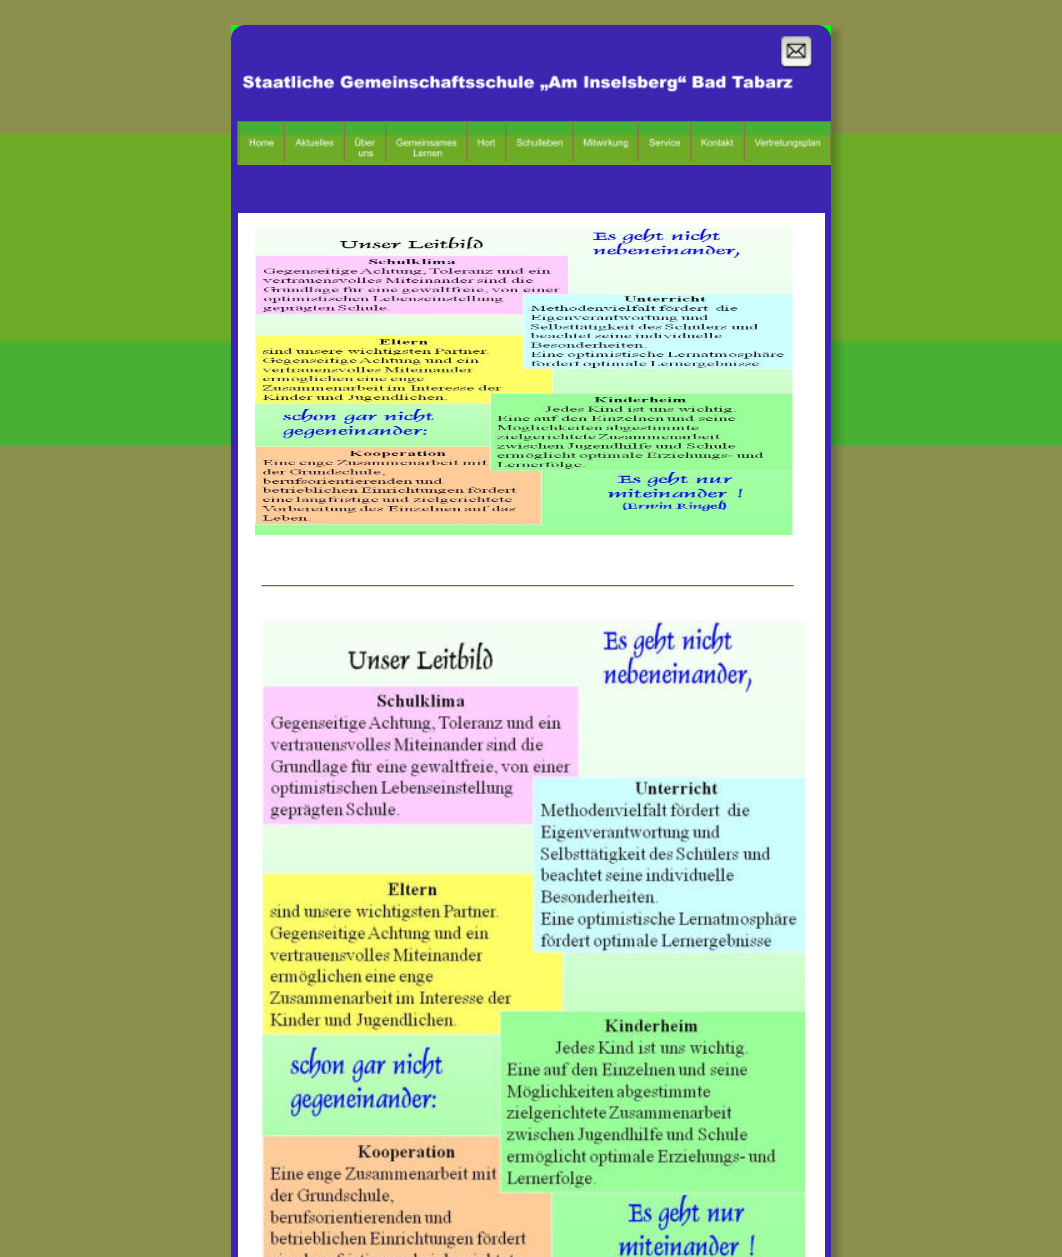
#include <cairo.h>
#include <math.h>
#include <stddef.h>

static cairo_t *ctx;

static void use_color(int r, int g, int b) {
    cairo_set_source_rgb(ctx, r / 255.0, g / 255.0, b / 255.0);
}

static void round_rect(double x, double y, double w, double h, double r) {
    cairo_new_sub_path(ctx);
    cairo_arc(ctx, x + w - r, y + h - r, r, 0, M_PI / 2);
    cairo_arc(ctx, x + r, y + h - r, r, M_PI / 2, M_PI);
    cairo_arc(ctx, x + r, y + r, r, M_PI, 1.5 * M_PI);
    cairo_arc(ctx, x + w - r, y + r, r, 1.5 * M_PI, 2 * M_PI);
    cairo_close_path(ctx);
}

static void shadow(double x, double y, double w, double h, double r, double blur, double alpha) {
    cairo_push_group_with_content(ctx, CAIRO_CONTENT_ALPHA);
    cairo_set_operator(ctx, CAIRO_OPERATOR_SOURCE);
    for (int i = 15; i >= -15 && fmin(w, h) + blur * i / 3 > 0; i -= 2) {
        double e = blur * i / 6;
        cairo_set_source_rgba(ctx, 0, 0, 0, alpha * erfc((i - 1) / 8.5) / 2);
        round_rect(x - e, y - e, w + 2 * e, h + 2 * e, fmax(0, fmin(r + e + blur * .6, fmin(w, h) / 2 + e)));
        cairo_fill(ctx);
    }
    cairo_pattern_t *soft = cairo_pop_group(ctx);
    cairo_mask(ctx, soft);
    cairo_pattern_destroy(soft);
}

static void picture(const char *path, double x, double y, double w, double h) {
    cairo_surface_t *image = cairo_image_surface_create_from_png(path);
    cairo_save(ctx);
    cairo_set_source_surface(ctx, image, x, y);
    cairo_rectangle(ctx, x, y, w, h);
    cairo_fill(ctx);
    cairo_restore(ctx);
    cairo_surface_destroy(image);
}

int main(void) {
    cairo_surface_t *surface = cairo_image_surface_create(CAIRO_FORMAT_RGB24, 1062, 1257);
    ctx = cairo_create(surface);
    cairo_font_options_t *options = cairo_font_options_create();
    cairo_font_options_set_hint_metrics(options, CAIRO_HINT_METRICS_OFF);
    cairo_font_options_set_hint_style(options, CAIRO_HINT_STYLE_NONE);
    cairo_set_font_options(ctx, options);
    cairo_set_miter_limit(ctx, 4);
    use_color(139, 144, 77);
    cairo_paint(ctx);
    picture("img17.png", 0, 133, 1062, 312);
    use_color(0, 0, 0);
    shadow(238, 31, 600, 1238, 0, 4, 0.25);
    use_color(0, 255, 3);
    cairo_rectangle(ctx, 231, 25, 600, 14);
    cairo_fill(ctx);
    use_color(61, 36, 177);
    round_rect(231, 25, 600, 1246, 14);
    cairo_fill(ctx);
    use_color(255, 255, 255);
    cairo_rectangle(ctx, 238, 213, 587, 1044);
    cairo_fill(ctx);
    picture("img1.png", 780, 36, 33, 33);
    picture("img2.png", 242, 75, 551, 17);
    picture("img3.png", 237, 121, 594, 44);
    picture("img4.png", 255, 227, 538, 308);
    picture("img5.png", 261, 585, 534, 2);
    picture("img6.png", 262, 620, 543, 637);
    picture("img7.png", 238, 123, 47, 39);
    picture("img8.png", 283, 123, 62, 39);
    picture("img9.png", 343, 123, 44, 39);
    picture("img10.png", 385, 123, 83, 39);
    picture("img11.png", 466, 123, 41, 39);
    picture("img12.png", 505, 123, 69, 39);
    picture("img13.png", 572, 123, 67, 39);
    picture("img14.png", 637, 123, 55, 39);
    picture("img15.png", 690, 123, 55, 39);
    picture("img16.png", 743, 123, 89, 39);
    cairo_surface_write_to_png(surface, "result.png");
    cairo_font_options_destroy(options);
    cairo_destroy(ctx);
    cairo_surface_destroy(surface);
    return 0;
}
